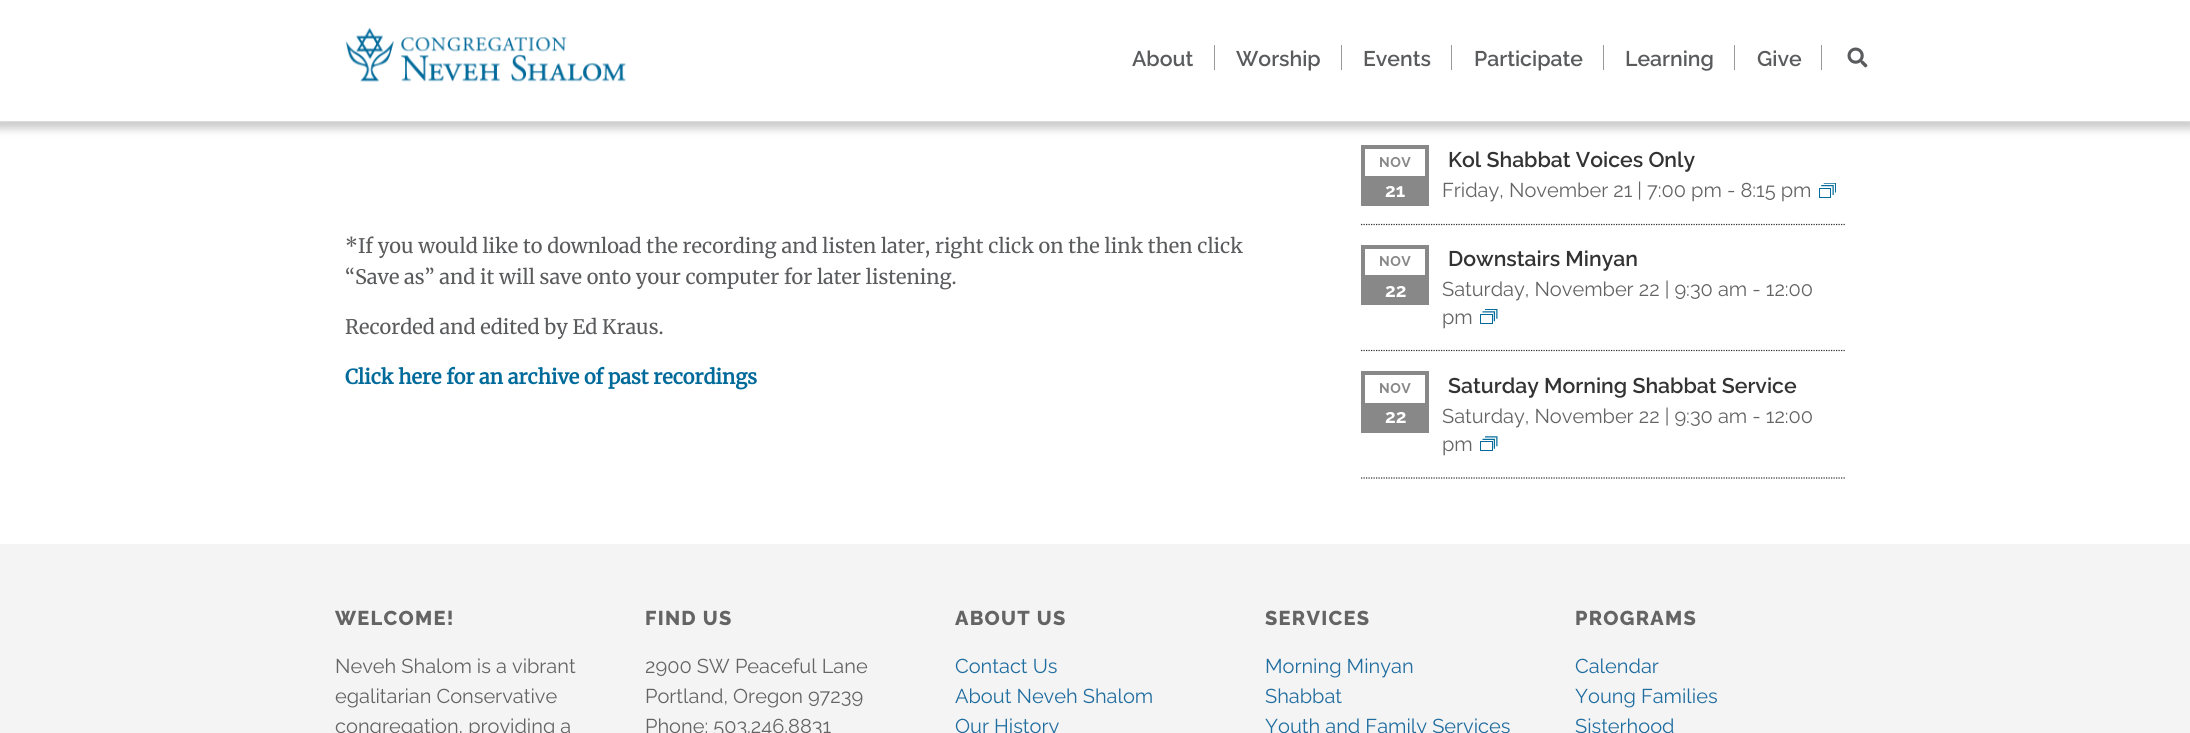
#include <cairo.h>
#include <math.h>
#include <stddef.h>

static cairo_t *ctx;

static void use_color(int r, int g, int b) {
    cairo_set_source_rgb(ctx, r / 255.0, g / 255.0, b / 255.0);
}

static void spaced_text(double x, double y, const char *s, double letter, double word) {
    cairo_move_to(ctx, x, y);
    while (*s) {
        char ch[5] = {0};
        int n = 0;
        do ch[n++] = *s++; while ((*s & 0xC0) == 0x80);
        cairo_show_text(ctx, ch);
        cairo_rel_move_to(ctx, letter + word * (*ch == ' '), 0);
    }
}

static void round_rect(double x, double y, double w, double h, double r) {
    cairo_new_sub_path(ctx);
    cairo_arc(ctx, x + w - r, y + h - r, r, 0, M_PI / 2);
    cairo_arc(ctx, x + r, y + h - r, r, M_PI / 2, M_PI);
    cairo_arc(ctx, x + r, y + r, r, M_PI, 1.5 * M_PI);
    cairo_arc(ctx, x + w - r, y + r, r, 1.5 * M_PI, 2 * M_PI);
    cairo_close_path(ctx);
}

static void shadow(double x, double y, double w, double h, double r, double blur, double alpha) {
    cairo_push_group_with_content(ctx, CAIRO_CONTENT_ALPHA);
    cairo_set_operator(ctx, CAIRO_OPERATOR_SOURCE);
    for (int i = 15; i >= -15 && fmin(w, h) + blur * i / 3 > 0; i -= 2) {
        double e = blur * i / 6;
        cairo_set_source_rgba(ctx, 0, 0, 0, alpha * erfc((i - 1) / 8.5) / 2);
        round_rect(x - e, y - e, w + 2 * e, h + 2 * e, fmax(0, fmin(r + e + blur * .6, fmin(w, h) / 2 + e)));
        cairo_fill(ctx);
    }
    cairo_pattern_t *soft = cairo_pop_group(ctx);
    cairo_mask(ctx, soft);
    cairo_pattern_destroy(soft);
}

static void picture(const char *path, double x, double y, double w, double h) {
    cairo_surface_t *image = cairo_image_surface_create_from_png(path);
    cairo_save(ctx);
    cairo_set_source_surface(ctx, image, x, y);
    cairo_rectangle(ctx, x, y, w, h);
    cairo_fill(ctx);
    cairo_restore(ctx);
    cairo_surface_destroy(image);
}

int main(void) {
    cairo_surface_t *surface = cairo_image_surface_create(CAIRO_FORMAT_RGB24, 2190, 733);
    ctx = cairo_create(surface);
    cairo_font_options_t *options = cairo_font_options_create();
    cairo_font_options_set_hint_metrics(options, CAIRO_HINT_METRICS_OFF);
    cairo_font_options_set_hint_style(options, CAIRO_HINT_STYLE_NONE);
    cairo_set_font_options(ctx, options);
    cairo_set_miter_limit(ctx, 4);
    use_color(255, 255, 255);
    cairo_paint(ctx);
    use_color(119, 119, 119);
    shadow(-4, -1, 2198, 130, 0, 4, 0.37);
    use_color(255, 255, 255);
    cairo_rectangle(ctx, 0, 0, 2190, 121);
    cairo_fill(ctx);
    use_color(221, 221, 221);
    cairo_rectangle(ctx, 0, 121, 2190, 1);
    cairo_fill(ctx);
    picture("img1.png", 346, 27, 280, 55);
    cairo_select_font_face(ctx, "Raleway SemiBold", CAIRO_FONT_SLANT_NORMAL, CAIRO_FONT_WEIGHT_NORMAL);
    cairo_set_font_size(ctx, 21.25);
    use_color(90, 91, 93);
    cairo_move_to(ctx, 1132, 66);
    cairo_show_text(ctx, "About");
    use_color(153, 153, 153);
    cairo_rectangle(ctx, 1214, 45, 1, 25);
    cairo_fill(ctx);
    use_color(90, 91, 93);
    cairo_move_to(ctx, 1236, 66);
    cairo_show_text(ctx, "Worship");
    use_color(153, 153, 153);
    cairo_rectangle(ctx, 1341, 45, 1, 25);
    cairo_fill(ctx);
    use_color(90, 91, 93);
    cairo_move_to(ctx, 1363, 66);
    cairo_show_text(ctx, "Events");
    use_color(153, 153, 153);
    cairo_rectangle(ctx, 1451, 45, 1, 25);
    cairo_fill(ctx);
    use_color(90, 91, 93);
    cairo_move_to(ctx, 1474, 66);
    cairo_show_text(ctx, "Participate");
    use_color(153, 153, 153);
    cairo_rectangle(ctx, 1603, 45, 1, 25);
    cairo_fill(ctx);
    use_color(90, 91, 93);
    cairo_move_to(ctx, 1625, 66);
    cairo_show_text(ctx, "Learning");
    use_color(153, 153, 153);
    cairo_rectangle(ctx, 1734, 45, 1, 25);
    cairo_fill(ctx);
    use_color(90, 91, 93);
    cairo_move_to(ctx, 1757, 66);
    cairo_show_text(ctx, "Give");
    use_color(153, 153, 153);
    cairo_rectangle(ctx, 1821, 45, 1, 25);
    cairo_fill(ctx);
    picture("img2.png", 1847, 47, 21, 21);
    cairo_select_font_face(ctx, "Merriweather Light", CAIRO_FONT_SLANT_NORMAL, CAIRO_FONT_WEIGHT_NORMAL);
    cairo_set_font_size(ctx, 20);
    use_color(90, 91, 93);
    cairo_move_to(ctx, 345, 253);
    cairo_show_text(ctx, "*If you would like to download the recording and listen later, right click on the link then click");
    cairo_move_to(ctx, 345, 284);
    cairo_show_text(ctx, "“Save as” and it will save onto your computer for later listening.");
    cairo_move_to(ctx, 345, 334);
    cairo_show_text(ctx, "Recorded and edited by Ed Kraus.");
    cairo_select_font_face(ctx, "Merriweather", CAIRO_FONT_SLANT_NORMAL, CAIRO_FONT_WEIGHT_BOLD);
    use_color(0, 106, 154);
    cairo_move_to(ctx, 345, 384);
    cairo_show_text(ctx, "Click here for an archive of past recordings");
    cairo_new_path(ctx);
    cairo_move_to(ctx, 1361, 224.5);
    cairo_line_to(ctx, 1845, 224.5);
    use_color(47, 47, 47);
    cairo_set_line_width(ctx, 1.2);
    cairo_set_dash(ctx, (double[]){1.25, 1.25}, 2, 0);
    cairo_stroke(ctx);
    cairo_rectangle(ctx, 1363, 147, 64, 32);
    use_color(136, 136, 136);
    cairo_set_line_width(ctx, 4);
    cairo_set_dash(ctx, NULL, 0, 0);
    cairo_stroke(ctx);
    cairo_select_font_face(ctx, "Raleway", CAIRO_FONT_SLANT_NORMAL, CAIRO_FONT_WEIGHT_BOLD);
    cairo_set_font_size(ctx, 14);
    spaced_text(1379, 167, "NOV", 0.5, 0);
    cairo_rectangle(ctx, 1361, 176, 68, 30);
    cairo_fill(ctx);
    cairo_set_font_size(ctx, 19);
    use_color(255, 255, 255);
    cairo_move_to(ctx, 1385, 197);
    cairo_show_text(ctx, "21");
    cairo_select_font_face(ctx, "Raleway SemiBold", CAIRO_FONT_SLANT_NORMAL, CAIRO_FONT_WEIGHT_NORMAL);
    cairo_set_font_size(ctx, 21.25);
    use_color(51, 51, 51);
    cairo_move_to(ctx, 1448, 167);
    cairo_show_text(ctx, "Kol Shabbat Voices Only");
    cairo_select_font_face(ctx, "Raleway", CAIRO_FONT_SLANT_NORMAL, CAIRO_FONT_WEIGHT_NORMAL);
    cairo_set_font_size(ctx, 20);
    use_color(100, 100, 100);
    cairo_move_to(ctx, 1442, 197);
    cairo_show_text(ctx, "Friday, November 21 | 7:00 pm - 8:15 pm");
    picture("img3.png", 1819, 183, 17, 15);
    cairo_new_path(ctx);
    cairo_move_to(ctx, 1361, 350.5);
    cairo_line_to(ctx, 1845, 350.5);
    use_color(47, 47, 47);
    cairo_set_line_width(ctx, 1.2);
    cairo_set_dash(ctx, (double[]){1.25, 1.25}, 2, 0);
    cairo_stroke(ctx);
    cairo_rectangle(ctx, 1363, 247, 64, 31);
    use_color(136, 136, 136);
    cairo_set_line_width(ctx, 4);
    cairo_set_dash(ctx, NULL, 0, 0);
    cairo_stroke(ctx);
    cairo_select_font_face(ctx, "Raleway", CAIRO_FONT_SLANT_NORMAL, CAIRO_FONT_WEIGHT_BOLD);
    cairo_set_font_size(ctx, 14);
    spaced_text(1379, 266, "NOV", 0.5, 0);
    cairo_rectangle(ctx, 1361, 275, 68, 30);
    cairo_fill(ctx);
    cairo_set_font_size(ctx, 19);
    use_color(255, 255, 255);
    cairo_move_to(ctx, 1385, 297);
    cairo_show_text(ctx, "22");
    cairo_select_font_face(ctx, "Raleway SemiBold", CAIRO_FONT_SLANT_NORMAL, CAIRO_FONT_WEIGHT_NORMAL);
    cairo_set_font_size(ctx, 21.25);
    use_color(51, 51, 51);
    cairo_move_to(ctx, 1448, 266);
    cairo_show_text(ctx, "Downstairs Minyan");
    cairo_select_font_face(ctx, "Raleway", CAIRO_FONT_SLANT_NORMAL, CAIRO_FONT_WEIGHT_NORMAL);
    cairo_set_font_size(ctx, 20);
    use_color(100, 100, 100);
    cairo_move_to(ctx, 1442, 296);
    cairo_show_text(ctx, "Saturday, November 22 | 9:30 am - 12:00");
    cairo_move_to(ctx, 1442, 324);
    cairo_show_text(ctx, "pm");
    picture("img4.png", 1480, 309, 18, 15);
    cairo_new_path(ctx);
    cairo_move_to(ctx, 1361, 478);
    cairo_line_to(ctx, 1845, 478);
    use_color(47, 47, 47);
    cairo_set_line_width(ctx, 1.2);
    cairo_set_dash(ctx, (double[]){1.25, 1.25}, 2, 0);
    cairo_stroke(ctx);
    cairo_rectangle(ctx, 1363, 373, 64, 33);
    use_color(136, 136, 136);
    cairo_set_line_width(ctx, 4);
    cairo_set_dash(ctx, NULL, 0, 0);
    cairo_stroke(ctx);
    cairo_select_font_face(ctx, "Raleway", CAIRO_FONT_SLANT_NORMAL, CAIRO_FONT_WEIGHT_BOLD);
    cairo_set_font_size(ctx, 14);
    spaced_text(1379, 393, "NOV", 0.5, 0);
    cairo_rectangle(ctx, 1361, 403, 68, 30);
    cairo_fill(ctx);
    cairo_set_font_size(ctx, 19);
    use_color(255, 255, 255);
    cairo_move_to(ctx, 1385, 423);
    cairo_show_text(ctx, "22");
    cairo_select_font_face(ctx, "Raleway SemiBold", CAIRO_FONT_SLANT_NORMAL, CAIRO_FONT_WEIGHT_NORMAL);
    cairo_set_font_size(ctx, 21.25);
    use_color(51, 51, 51);
    cairo_move_to(ctx, 1448, 393);
    cairo_show_text(ctx, "Saturday Morning Shabbat Service");
    cairo_select_font_face(ctx, "Raleway", CAIRO_FONT_SLANT_NORMAL, CAIRO_FONT_WEIGHT_NORMAL);
    cairo_set_font_size(ctx, 20);
    use_color(100, 100, 100);
    cairo_move_to(ctx, 1442, 423);
    cairo_show_text(ctx, "Saturday, November 22 | 9:30 am - 12:00");
    cairo_move_to(ctx, 1442, 451);
    cairo_show_text(ctx, "pm");
    picture("img5.png", 1480, 436, 18, 15);
    use_color(244, 244, 244);
    cairo_rectangle(ctx, 0, 544, 2190, 189);
    cairo_fill(ctx);
    cairo_select_font_face(ctx, "Raleway ExtraBold", CAIRO_FONT_SLANT_NORMAL, CAIRO_FONT_WEIGHT_NORMAL);
    use_color(100, 100, 100);
    spaced_text(335, 625, "WELCOME!", 1.25, 0);
    cairo_select_font_face(ctx, "Raleway", CAIRO_FONT_SLANT_NORMAL, CAIRO_FONT_WEIGHT_NORMAL);
    cairo_move_to(ctx, 335, 673);
    cairo_show_text(ctx, "Neveh Shalom is a vibrant");
    cairo_move_to(ctx, 335, 703);
    cairo_show_text(ctx, "egalitarian Conservative");
    cairo_move_to(ctx, 335, 733);
    cairo_show_text(ctx, "congregation, providing a");
    cairo_select_font_face(ctx, "Raleway ExtraBold", CAIRO_FONT_SLANT_NORMAL, CAIRO_FONT_WEIGHT_NORMAL);
    spaced_text(645, 625, "FIND US", 1.25, 0);
    cairo_select_font_face(ctx, "Raleway", CAIRO_FONT_SLANT_NORMAL, CAIRO_FONT_WEIGHT_NORMAL);
    cairo_move_to(ctx, 645, 673);
    cairo_show_text(ctx, "2900 SW Peaceful Lane");
    cairo_move_to(ctx, 645, 703);
    cairo_show_text(ctx, "Portland, Oregon 97239");
    cairo_move_to(ctx, 645, 733);
    cairo_show_text(ctx, "Phone: 503.246.8831");
    cairo_select_font_face(ctx, "Raleway ExtraBold", CAIRO_FONT_SLANT_NORMAL, CAIRO_FONT_WEIGHT_NORMAL);
    spaced_text(955, 625, "ABOUT US", 1.25, 0);
    cairo_select_font_face(ctx, "Raleway", CAIRO_FONT_SLANT_NORMAL, CAIRO_FONT_WEIGHT_NORMAL);
    use_color(32, 109, 160);
    cairo_move_to(ctx, 955, 673);
    cairo_show_text(ctx, "Contact Us");
    cairo_move_to(ctx, 955, 703);
    cairo_show_text(ctx, "About Neveh Shalom");
    cairo_move_to(ctx, 955, 733);
    cairo_show_text(ctx, "Our History");
    cairo_select_font_face(ctx, "Raleway ExtraBold", CAIRO_FONT_SLANT_NORMAL, CAIRO_FONT_WEIGHT_NORMAL);
    use_color(100, 100, 100);
    spaced_text(1265, 625, "SERVICES", 1.25, 0);
    cairo_select_font_face(ctx, "Raleway", CAIRO_FONT_SLANT_NORMAL, CAIRO_FONT_WEIGHT_NORMAL);
    use_color(32, 109, 160);
    cairo_move_to(ctx, 1265, 673);
    cairo_show_text(ctx, "Morning Minyan");
    cairo_move_to(ctx, 1265, 703);
    cairo_show_text(ctx, "Shabbat");
    cairo_move_to(ctx, 1265, 733);
    cairo_show_text(ctx, "Youth and Family Services");
    cairo_select_font_face(ctx, "Raleway ExtraBold", CAIRO_FONT_SLANT_NORMAL, CAIRO_FONT_WEIGHT_NORMAL);
    use_color(100, 100, 100);
    spaced_text(1575, 625, "PROGRAMS", 1.25, 0);
    cairo_select_font_face(ctx, "Raleway", CAIRO_FONT_SLANT_NORMAL, CAIRO_FONT_WEIGHT_NORMAL);
    use_color(32, 109, 160);
    cairo_move_to(ctx, 1575, 673);
    cairo_show_text(ctx, "Calendar");
    cairo_move_to(ctx, 1575, 703);
    cairo_show_text(ctx, "Young Families");
    cairo_move_to(ctx, 1575, 733);
    cairo_show_text(ctx, "Sisterhood");
    cairo_surface_write_to_png(surface, "result.png");
    cairo_font_options_destroy(options);
    cairo_destroy(ctx);
    cairo_surface_destroy(surface);
    return 0;
}
